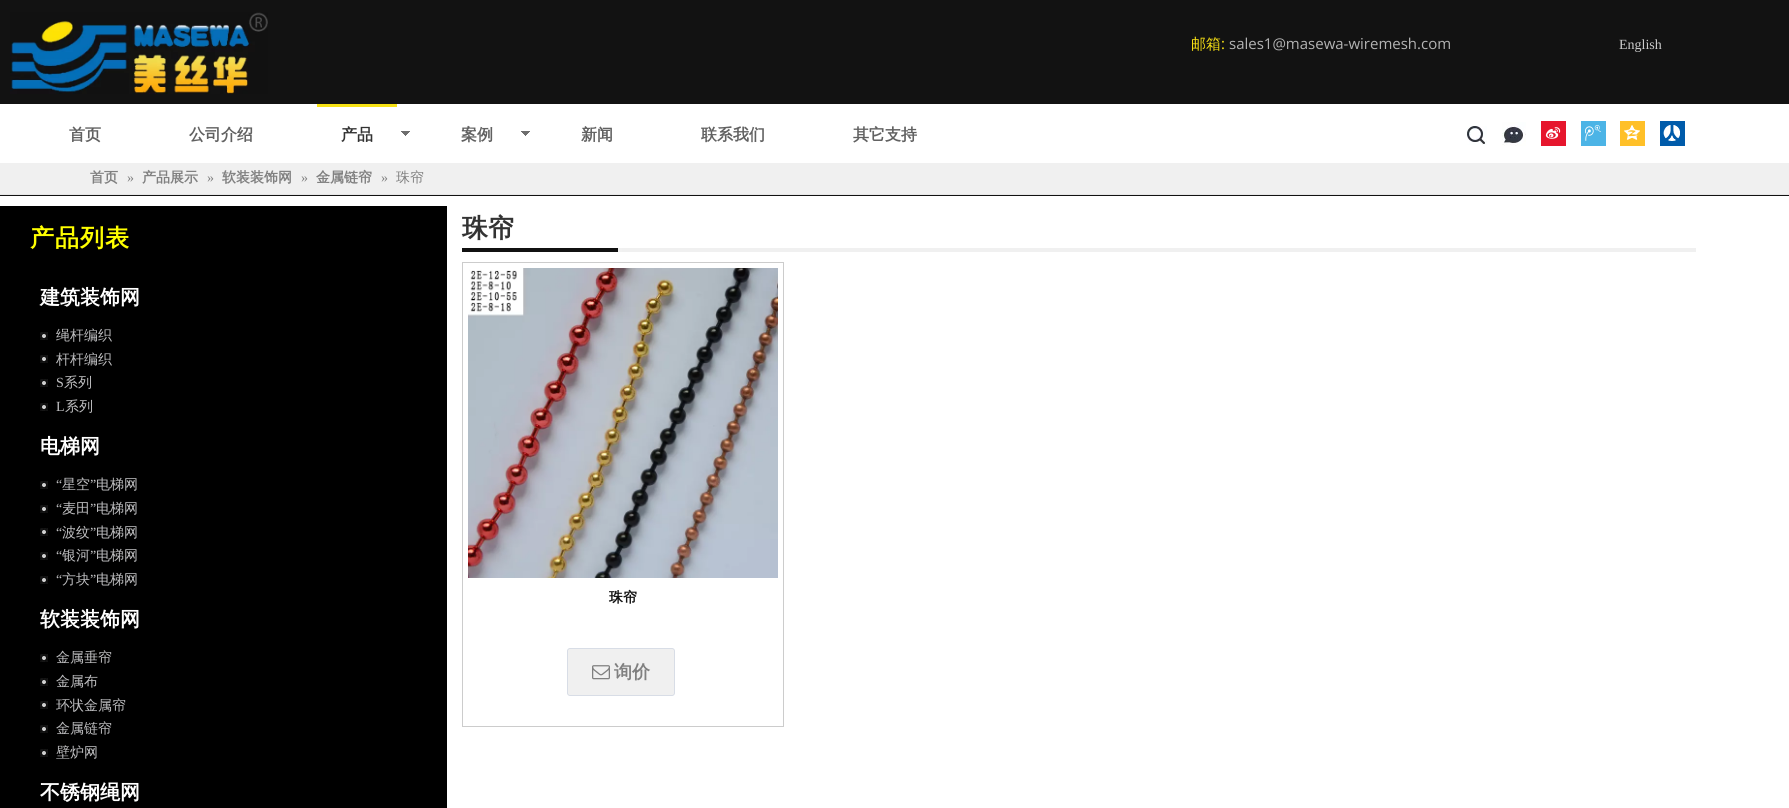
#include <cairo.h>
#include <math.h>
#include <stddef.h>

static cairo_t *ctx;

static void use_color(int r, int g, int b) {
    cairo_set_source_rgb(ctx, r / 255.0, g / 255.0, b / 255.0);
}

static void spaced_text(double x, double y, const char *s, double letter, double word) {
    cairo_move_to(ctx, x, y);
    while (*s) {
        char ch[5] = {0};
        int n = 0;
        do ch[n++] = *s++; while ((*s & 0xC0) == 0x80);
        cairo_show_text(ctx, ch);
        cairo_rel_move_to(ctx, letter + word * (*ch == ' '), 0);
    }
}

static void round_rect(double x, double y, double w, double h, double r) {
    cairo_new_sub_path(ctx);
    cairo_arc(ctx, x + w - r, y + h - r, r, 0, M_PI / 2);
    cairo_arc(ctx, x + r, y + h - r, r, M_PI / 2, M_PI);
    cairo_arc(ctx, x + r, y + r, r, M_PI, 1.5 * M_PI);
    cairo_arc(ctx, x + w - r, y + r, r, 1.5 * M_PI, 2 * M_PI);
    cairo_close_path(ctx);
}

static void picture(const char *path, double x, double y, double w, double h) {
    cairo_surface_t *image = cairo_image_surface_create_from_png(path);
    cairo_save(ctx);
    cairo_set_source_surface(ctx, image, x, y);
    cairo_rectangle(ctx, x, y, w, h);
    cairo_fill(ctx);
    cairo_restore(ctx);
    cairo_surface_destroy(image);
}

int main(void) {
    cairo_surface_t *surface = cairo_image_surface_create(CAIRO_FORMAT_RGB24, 1789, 808);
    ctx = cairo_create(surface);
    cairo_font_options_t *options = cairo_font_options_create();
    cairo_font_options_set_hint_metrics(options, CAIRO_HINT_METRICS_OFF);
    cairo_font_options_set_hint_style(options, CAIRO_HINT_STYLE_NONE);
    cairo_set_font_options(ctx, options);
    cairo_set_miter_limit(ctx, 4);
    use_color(18, 18, 18);
    cairo_paint(ctx);
    picture("img1.png", 10, 12, 258, 82);
    cairo_select_font_face(ctx, "WenQuanYi Zen Hei Medium", CAIRO_FONT_SLANT_NORMAL, CAIRO_FONT_WEIGHT_NORMAL);
    cairo_set_font_size(ctx, 15);
    use_color(247, 224, 20);
    cairo_move_to(ctx, 1191, 49);
    cairo_show_text(ctx, "邮箱");
    cairo_select_font_face(ctx, "Open Sans", CAIRO_FONT_SLANT_NORMAL, CAIRO_FONT_WEIGHT_NORMAL);
    cairo_move_to(ctx, 1221, 49);
    cairo_show_text(ctx, ":");
    use_color(179, 179, 179);
    cairo_move_to(ctx, 1229, 49);
    cairo_show_text(ctx, "sales1@masewa-wiremesh.com");
    cairo_select_font_face(ctx, "Liberation Serif", CAIRO_FONT_SLANT_NORMAL, CAIRO_FONT_WEIGHT_NORMAL);
    cairo_set_font_size(ctx, 14);
    use_color(204, 204, 204);
    cairo_move_to(ctx, 1619, 49);
    cairo_show_text(ctx, "English");
    use_color(255, 255, 255);
    cairo_rectangle(ctx, 0, 104, 1789, 59);
    cairo_fill(ctx);
    cairo_select_font_face(ctx, "WenQuanYi Zen Hei", CAIRO_FONT_SLANT_NORMAL, CAIRO_FONT_WEIGHT_BOLD);
    cairo_set_font_size(ctx, 16);
    use_color(97, 97, 97);
    cairo_move_to(ctx, 69, 140);
    cairo_show_text(ctx, "首页");
    cairo_move_to(ctx, 189, 140);
    cairo_show_text(ctx, "公司介绍");
    picture("img2.png", 401, 131, 9, 5);
    use_color(247, 226, 20);
    cairo_rectangle(ctx, 317, 104, 80, 3);
    cairo_fill(ctx);
    use_color(51, 51, 51);
    cairo_move_to(ctx, 341, 140);
    cairo_show_text(ctx, "产品");
    picture("img2.png", 521, 131, 9, 5);
    use_color(97, 97, 97);
    cairo_move_to(ctx, 461, 140);
    cairo_show_text(ctx, "案例");
    cairo_move_to(ctx, 581, 140);
    cairo_show_text(ctx, "新闻");
    cairo_move_to(ctx, 701, 140);
    cairo_show_text(ctx, "联系我们");
    cairo_move_to(ctx, 853, 140);
    cairo_show_text(ctx, "其它支持");
    picture("img3.png", 1467, 126, 20, 19);
    picture("img4.png", 1502, 122, 24, 24);
    use_color(230, 22, 45);
    cairo_rectangle(ctx, 1541, 121, 25, 25);
    cairo_fill(ctx);
    picture("img5.png", 1545, 127, 16, 12);
    use_color(76, 180, 230);
    cairo_rectangle(ctx, 1581, 121, 25, 25);
    cairo_fill(ctx);
    picture("img6.png", 1585, 125, 16, 16);
    use_color(255, 192, 40);
    cairo_rectangle(ctx, 1620, 121, 25, 25);
    cairo_fill(ctx);
    picture("img7.png", 1624, 125, 16, 15);
    use_color(0, 91, 170);
    cairo_rectangle(ctx, 1660, 121, 25, 25);
    cairo_fill(ctx);
    picture("img8.png", 1663, 125, 17, 16);
    use_color(240, 240, 240);
    cairo_rectangle(ctx, 0, 163, 1789, 31);
    cairo_fill(ctx);
    use_color(230, 230, 230);
    cairo_rectangle(ctx, 0, 194, 1789, 1);
    cairo_fill(ctx);
    cairo_set_font_size(ctx, 14);
    use_color(128, 128, 128);
    cairo_move_to(ctx, 90, 182);
    cairo_show_text(ctx, "首页");
    cairo_select_font_face(ctx, "Liberation Serif", CAIRO_FONT_SLANT_NORMAL, CAIRO_FONT_WEIGHT_NORMAL);
    cairo_move_to(ctx, 127, 182);
    cairo_show_text(ctx, "»");
    cairo_select_font_face(ctx, "WenQuanYi Zen Hei", CAIRO_FONT_SLANT_NORMAL, CAIRO_FONT_WEIGHT_BOLD);
    cairo_move_to(ctx, 142, 182);
    cairo_show_text(ctx, "产品展示");
    cairo_select_font_face(ctx, "Liberation Serif", CAIRO_FONT_SLANT_NORMAL, CAIRO_FONT_WEIGHT_NORMAL);
    cairo_move_to(ctx, 207, 182);
    cairo_show_text(ctx, "»");
    cairo_select_font_face(ctx, "WenQuanYi Zen Hei", CAIRO_FONT_SLANT_NORMAL, CAIRO_FONT_WEIGHT_BOLD);
    cairo_move_to(ctx, 222, 182);
    cairo_show_text(ctx, "软装装饰网");
    cairo_select_font_face(ctx, "Liberation Serif", CAIRO_FONT_SLANT_NORMAL, CAIRO_FONT_WEIGHT_NORMAL);
    cairo_move_to(ctx, 301, 182);
    cairo_show_text(ctx, "»");
    cairo_select_font_face(ctx, "WenQuanYi Zen Hei", CAIRO_FONT_SLANT_NORMAL, CAIRO_FONT_WEIGHT_BOLD);
    cairo_move_to(ctx, 316, 182);
    cairo_show_text(ctx, "金属链帘");
    cairo_select_font_face(ctx, "Liberation Serif", CAIRO_FONT_SLANT_NORMAL, CAIRO_FONT_WEIGHT_NORMAL);
    cairo_move_to(ctx, 381, 182);
    cairo_show_text(ctx, "»");
    cairo_select_font_face(ctx, "WenQuanYi Zen Hei Medium", CAIRO_FONT_SLANT_NORMAL, CAIRO_FONT_WEIGHT_NORMAL);
    cairo_move_to(ctx, 396, 182);
    cairo_show_text(ctx, "珠帘");
    use_color(255, 255, 255);
    cairo_rectangle(ctx, 0, 196, 1789, 612);
    cairo_fill(ctx);
    use_color(0, 0, 0);
    cairo_rectangle(ctx, 0, 206, 447, 602);
    cairo_fill(ctx);
    cairo_select_font_face(ctx, "WenQuanYi Zen Hei", CAIRO_FONT_SLANT_NORMAL, CAIRO_FONT_WEIGHT_BOLD);
    cairo_set_font_size(ctx, 24);
    use_color(255, 255, 0);
    spaced_text(30, 246, "产品列表", 1, 0);
    cairo_set_font_size(ctx, 20);
    use_color(255, 255, 255);
    cairo_move_to(ctx, 40, 304);
    cairo_show_text(ctx, "建筑装饰网");
    picture("img9.png", 40, 332, 8, 8);
    cairo_select_font_face(ctx, "WenQuanYi Zen Hei Medium", CAIRO_FONT_SLANT_NORMAL, CAIRO_FONT_WEIGHT_NORMAL);
    cairo_set_font_size(ctx, 14);
    use_color(192, 192, 194);
    cairo_move_to(ctx, 56, 340);
    cairo_show_text(ctx, "绳杆编织");
    picture("img9.png", 40, 355, 8, 8);
    cairo_move_to(ctx, 56, 364);
    cairo_show_text(ctx, "杆杆编织");
    picture("img9.png", 40, 379, 8, 8);
    cairo_select_font_face(ctx, "Liberation Serif", CAIRO_FONT_SLANT_NORMAL, CAIRO_FONT_WEIGHT_NORMAL);
    cairo_move_to(ctx, 56, 387);
    cairo_show_text(ctx, "S");
    cairo_select_font_face(ctx, "WenQuanYi Zen Hei Medium", CAIRO_FONT_SLANT_NORMAL, CAIRO_FONT_WEIGHT_NORMAL);
    cairo_move_to(ctx, 64, 387);
    cairo_show_text(ctx, "系列");
    picture("img9.png", 40, 403, 8, 8);
    cairo_select_font_face(ctx, "Liberation Serif", CAIRO_FONT_SLANT_NORMAL, CAIRO_FONT_WEIGHT_NORMAL);
    cairo_move_to(ctx, 56, 411);
    cairo_show_text(ctx, "L");
    cairo_select_font_face(ctx, "WenQuanYi Zen Hei Medium", CAIRO_FONT_SLANT_NORMAL, CAIRO_FONT_WEIGHT_NORMAL);
    cairo_move_to(ctx, 65, 411);
    cairo_show_text(ctx, "系列");
    cairo_select_font_face(ctx, "WenQuanYi Zen Hei", CAIRO_FONT_SLANT_NORMAL, CAIRO_FONT_WEIGHT_BOLD);
    cairo_set_font_size(ctx, 20);
    use_color(255, 255, 255);
    cairo_move_to(ctx, 40, 453);
    cairo_show_text(ctx, "电梯网");
    picture("img9.png", 40, 481, 8, 8);
    cairo_select_font_face(ctx, "Liberation Serif", CAIRO_FONT_SLANT_NORMAL, CAIRO_FONT_WEIGHT_NORMAL);
    cairo_set_font_size(ctx, 14);
    use_color(192, 192, 194);
    cairo_move_to(ctx, 56, 489);
    cairo_show_text(ctx, "“");
    cairo_select_font_face(ctx, "WenQuanYi Zen Hei Medium", CAIRO_FONT_SLANT_NORMAL, CAIRO_FONT_WEIGHT_NORMAL);
    cairo_move_to(ctx, 62, 489);
    cairo_show_text(ctx, "星空");
    cairo_select_font_face(ctx, "Liberation Serif", CAIRO_FONT_SLANT_NORMAL, CAIRO_FONT_WEIGHT_NORMAL);
    cairo_move_to(ctx, 90, 489);
    cairo_show_text(ctx, "”");
    cairo_select_font_face(ctx, "WenQuanYi Zen Hei Medium", CAIRO_FONT_SLANT_NORMAL, CAIRO_FONT_WEIGHT_NORMAL);
    cairo_move_to(ctx, 96, 489);
    cairo_show_text(ctx, "电梯网");
    picture("img9.png", 40, 505, 8, 8);
    cairo_select_font_face(ctx, "Liberation Serif", CAIRO_FONT_SLANT_NORMAL, CAIRO_FONT_WEIGHT_NORMAL);
    cairo_move_to(ctx, 56, 513);
    cairo_show_text(ctx, "“");
    cairo_select_font_face(ctx, "WenQuanYi Zen Hei Medium", CAIRO_FONT_SLANT_NORMAL, CAIRO_FONT_WEIGHT_NORMAL);
    cairo_move_to(ctx, 62, 513);
    cairo_show_text(ctx, "麦田");
    cairo_select_font_face(ctx, "Liberation Serif", CAIRO_FONT_SLANT_NORMAL, CAIRO_FONT_WEIGHT_NORMAL);
    cairo_move_to(ctx, 90, 513);
    cairo_show_text(ctx, "”");
    cairo_select_font_face(ctx, "WenQuanYi Zen Hei Medium", CAIRO_FONT_SLANT_NORMAL, CAIRO_FONT_WEIGHT_NORMAL);
    cairo_move_to(ctx, 96, 513);
    cairo_show_text(ctx, "电梯网");
    picture("img9.png", 40, 528, 8, 8);
    cairo_select_font_face(ctx, "Liberation Serif", CAIRO_FONT_SLANT_NORMAL, CAIRO_FONT_WEIGHT_NORMAL);
    cairo_move_to(ctx, 56, 537);
    cairo_show_text(ctx, "“");
    cairo_select_font_face(ctx, "WenQuanYi Zen Hei Medium", CAIRO_FONT_SLANT_NORMAL, CAIRO_FONT_WEIGHT_NORMAL);
    cairo_move_to(ctx, 62, 537);
    cairo_show_text(ctx, "波纹");
    cairo_select_font_face(ctx, "Liberation Serif", CAIRO_FONT_SLANT_NORMAL, CAIRO_FONT_WEIGHT_NORMAL);
    cairo_move_to(ctx, 90, 537);
    cairo_show_text(ctx, "”");
    cairo_select_font_face(ctx, "WenQuanYi Zen Hei Medium", CAIRO_FONT_SLANT_NORMAL, CAIRO_FONT_WEIGHT_NORMAL);
    cairo_move_to(ctx, 96, 537);
    cairo_show_text(ctx, "电梯网");
    picture("img9.png", 40, 552, 8, 8);
    cairo_select_font_face(ctx, "Liberation Serif", CAIRO_FONT_SLANT_NORMAL, CAIRO_FONT_WEIGHT_NORMAL);
    cairo_move_to(ctx, 56, 560);
    cairo_show_text(ctx, "“");
    cairo_select_font_face(ctx, "WenQuanYi Zen Hei Medium", CAIRO_FONT_SLANT_NORMAL, CAIRO_FONT_WEIGHT_NORMAL);
    cairo_move_to(ctx, 62, 560);
    cairo_show_text(ctx, "银河");
    cairo_select_font_face(ctx, "Liberation Serif", CAIRO_FONT_SLANT_NORMAL, CAIRO_FONT_WEIGHT_NORMAL);
    cairo_move_to(ctx, 90, 560);
    cairo_show_text(ctx, "”");
    cairo_select_font_face(ctx, "WenQuanYi Zen Hei Medium", CAIRO_FONT_SLANT_NORMAL, CAIRO_FONT_WEIGHT_NORMAL);
    cairo_move_to(ctx, 96, 560);
    cairo_show_text(ctx, "电梯网");
    picture("img9.png", 40, 576, 8, 8);
    cairo_select_font_face(ctx, "Liberation Serif", CAIRO_FONT_SLANT_NORMAL, CAIRO_FONT_WEIGHT_NORMAL);
    cairo_move_to(ctx, 56, 584);
    cairo_show_text(ctx, "“");
    cairo_select_font_face(ctx, "WenQuanYi Zen Hei Medium", CAIRO_FONT_SLANT_NORMAL, CAIRO_FONT_WEIGHT_NORMAL);
    cairo_move_to(ctx, 62, 584);
    cairo_show_text(ctx, "方块");
    cairo_select_font_face(ctx, "Liberation Serif", CAIRO_FONT_SLANT_NORMAL, CAIRO_FONT_WEIGHT_NORMAL);
    cairo_move_to(ctx, 90, 584);
    cairo_show_text(ctx, "”");
    cairo_select_font_face(ctx, "WenQuanYi Zen Hei Medium", CAIRO_FONT_SLANT_NORMAL, CAIRO_FONT_WEIGHT_NORMAL);
    cairo_move_to(ctx, 96, 584);
    cairo_show_text(ctx, "电梯网");
    cairo_select_font_face(ctx, "WenQuanYi Zen Hei", CAIRO_FONT_SLANT_NORMAL, CAIRO_FONT_WEIGHT_BOLD);
    cairo_set_font_size(ctx, 20);
    use_color(255, 255, 255);
    cairo_move_to(ctx, 40, 626);
    cairo_show_text(ctx, "软装装饰网");
    picture("img9.png", 40, 654, 8, 8);
    cairo_select_font_face(ctx, "WenQuanYi Zen Hei Medium", CAIRO_FONT_SLANT_NORMAL, CAIRO_FONT_WEIGHT_NORMAL);
    cairo_set_font_size(ctx, 14);
    use_color(192, 192, 194);
    cairo_move_to(ctx, 56, 662);
    cairo_show_text(ctx, "金属垂帘");
    picture("img9.png", 40, 678, 8, 8);
    cairo_move_to(ctx, 56, 686);
    cairo_show_text(ctx, "金属布");
    picture("img9.png", 40, 701, 8, 8);
    cairo_move_to(ctx, 56, 710);
    cairo_show_text(ctx, "环状金属帘");
    picture("img9.png", 40, 725, 8, 8);
    cairo_move_to(ctx, 56, 733);
    cairo_show_text(ctx, "金属链帘");
    picture("img9.png", 40, 749, 8, 8);
    cairo_move_to(ctx, 56, 757);
    cairo_show_text(ctx, "壁炉网");
    cairo_select_font_face(ctx, "WenQuanYi Zen Hei", CAIRO_FONT_SLANT_NORMAL, CAIRO_FONT_WEIGHT_BOLD);
    cairo_set_font_size(ctx, 20);
    use_color(255, 255, 255);
    cairo_move_to(ctx, 40, 799);
    cairo_show_text(ctx, "不锈钢绳网");
    picture("img10.png", 462, 248, 1234, 4);
    cairo_set_font_size(ctx, 26);
    use_color(51, 51, 51);
    cairo_move_to(ctx, 462, 237);
    cairo_show_text(ctx, "珠帘");
    cairo_rectangle(ctx, 462.5, 262.5, 321, 464);
    use_color(204, 204, 204);
    cairo_set_line_width(ctx, 1);
    cairo_stroke(ctx);
    picture("img11.png", 468, 268, 310, 310);
    cairo_set_font_size(ctx, 14);
    use_color(18, 18, 18);
    cairo_move_to(ctx, 609, 602);
    cairo_show_text(ctx, "珠帘");
    use_color(240, 240, 240);
    round_rect(567.5, 648.5, 107, 47, 2.5);
    cairo_fill_preserve(ctx);
    use_color(216, 221, 230);
    cairo_stroke(ctx);
    picture("img12.png", 592, 665, 18, 15);
    cairo_set_font_size(ctx, 18);
    use_color(128, 128, 128);
    cairo_move_to(ctx, 614, 678);
    cairo_show_text(ctx, "询价");
    cairo_surface_write_to_png(surface, "result.png");
    cairo_font_options_destroy(options);
    cairo_destroy(ctx);
    cairo_surface_destroy(surface);
    return 0;
}
